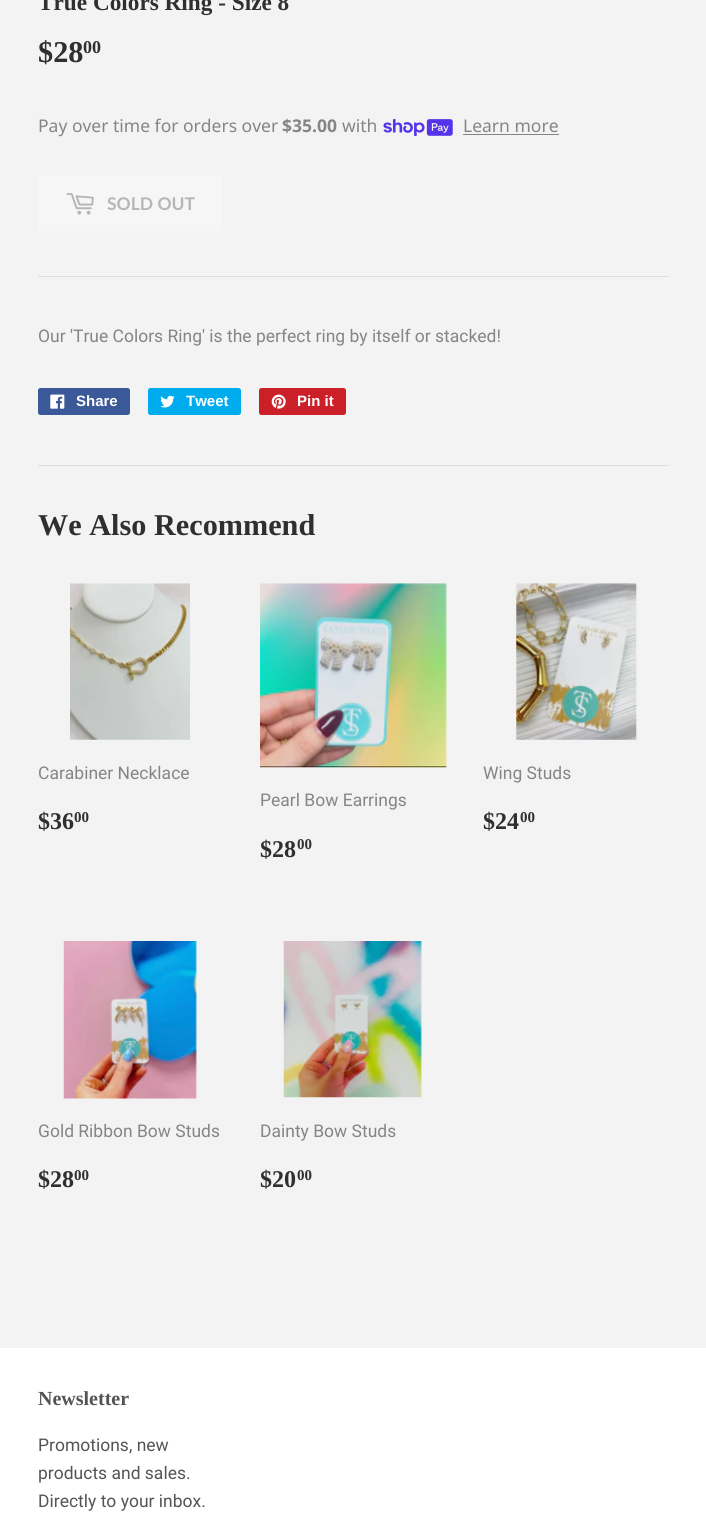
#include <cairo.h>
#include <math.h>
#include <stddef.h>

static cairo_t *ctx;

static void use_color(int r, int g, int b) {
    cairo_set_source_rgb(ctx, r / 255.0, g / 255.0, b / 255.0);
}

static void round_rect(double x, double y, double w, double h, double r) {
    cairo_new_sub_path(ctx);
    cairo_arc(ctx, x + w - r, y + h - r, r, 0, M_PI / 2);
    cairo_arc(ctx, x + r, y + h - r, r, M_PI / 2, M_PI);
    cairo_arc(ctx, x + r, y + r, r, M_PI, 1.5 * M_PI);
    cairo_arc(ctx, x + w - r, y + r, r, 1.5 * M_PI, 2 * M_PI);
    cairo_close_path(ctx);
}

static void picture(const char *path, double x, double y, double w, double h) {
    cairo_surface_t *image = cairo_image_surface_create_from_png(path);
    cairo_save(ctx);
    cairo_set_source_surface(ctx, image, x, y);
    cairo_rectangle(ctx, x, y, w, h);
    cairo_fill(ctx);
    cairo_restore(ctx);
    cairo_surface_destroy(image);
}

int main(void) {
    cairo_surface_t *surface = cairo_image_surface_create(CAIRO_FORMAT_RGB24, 706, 1532);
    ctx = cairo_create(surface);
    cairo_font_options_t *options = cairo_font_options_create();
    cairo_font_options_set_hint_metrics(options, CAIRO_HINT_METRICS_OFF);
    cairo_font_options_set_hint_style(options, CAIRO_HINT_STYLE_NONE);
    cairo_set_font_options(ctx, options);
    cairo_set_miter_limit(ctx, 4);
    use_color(243, 243, 243);
    cairo_paint(ctx);
    cairo_select_font_face(ctx, "Liberation Serif", CAIRO_FONT_SLANT_NORMAL, CAIRO_FONT_WEIGHT_BOLD);
    cairo_set_font_size(ctx, 23.25);
    use_color(47, 47, 47);
    cairo_move_to(ctx, 38, 10);
    cairo_show_text(ctx, "True Colors Ring - Size 8");
    cairo_set_font_size(ctx, 30.25);
    cairo_move_to(ctx, 38, 62);
    cairo_show_text(ctx, "$28");
    cairo_set_font_size(ctx, 18);
    cairo_move_to(ctx, 83, 53);
    cairo_show_text(ctx, "00");
    cairo_select_font_face(ctx, "Noto Sans", CAIRO_FONT_SLANT_NORMAL, CAIRO_FONT_WEIGHT_NORMAL);
    cairo_set_font_size(ctx, 17.5);
    use_color(133, 133, 133);
    cairo_move_to(ctx, 38, 132);
    cairo_show_text(ctx, "Pay over time for orders over");
    cairo_select_font_face(ctx, "Noto Sans", CAIRO_FONT_SLANT_NORMAL, CAIRO_FONT_WEIGHT_BOLD);
    cairo_move_to(ctx, 282, 132);
    cairo_show_text(ctx, "$35.00");
    cairo_select_font_face(ctx, "Noto Sans", CAIRO_FONT_SLANT_NORMAL, CAIRO_FONT_WEIGHT_NORMAL);
    cairo_move_to(ctx, 342, 132);
    cairo_show_text(ctx, "with");
    picture("img1.png", 383, 119, 70, 17);
    cairo_move_to(ctx, 463, 132);
    cairo_show_text(ctx, "Learn more");
    cairo_rectangle(ctx, 463, 134, 96, 1);
    cairo_fill(ctx);
    use_color(246, 246, 246);
    round_rect(38, 176, 185, 55, 2.5);
    cairo_fill(ctx);
    picture("img2.png", 66, 193, 28, 22);
    cairo_select_font_face(ctx, "Lato", CAIRO_FONT_SLANT_NORMAL, CAIRO_FONT_WEIGHT_BOLD);
    use_color(182, 182, 182);
    cairo_move_to(ctx, 107, 210);
    cairo_show_text(ctx, "SOLD OUT");
    use_color(222, 222, 222);
    cairo_rectangle(ctx, 38, 276, 631, 1);
    cairo_fill(ctx);
    cairo_select_font_face(ctx, "Roboto", CAIRO_FONT_SLANT_NORMAL, CAIRO_FONT_WEIGHT_NORMAL);
    use_color(133, 133, 133);
    cairo_move_to(ctx, 38, 342);
    cairo_show_text(ctx, "Our 'True Colors Ring' is the perfect ring by itself or stacked!");
    use_color(59, 89, 152);
    round_rect(38, 388, 92, 27, 2.5);
    cairo_fill(ctx);
    picture("img3.png", 50, 394, 15, 15);
    cairo_select_font_face(ctx, "Liberation Sans", CAIRO_FONT_SLANT_NORMAL, CAIRO_FONT_WEIGHT_BOLD);
    cairo_set_font_size(ctx, 15);
    use_color(255, 255, 255);
    cairo_move_to(ctx, 76, 406);
    cairo_show_text(ctx, "Share");
    use_color(0, 172, 237);
    round_rect(148, 388, 93, 27, 2.5);
    cairo_fill(ctx);
    picture("img4.png", 160, 395, 15, 13);
    use_color(255, 255, 255);
    cairo_move_to(ctx, 186, 406);
    cairo_show_text(ctx, "Tweet");
    use_color(203, 32, 39);
    round_rect(259, 388, 87, 27, 2.5);
    cairo_fill(ctx);
    picture("img5.png", 271, 394, 15, 15);
    use_color(255, 255, 255);
    cairo_move_to(ctx, 297, 406);
    cairo_show_text(ctx, "Pin it");
    use_color(222, 222, 222);
    cairo_rectangle(ctx, 38, 465, 631, 1);
    cairo_fill(ctx);
    cairo_select_font_face(ctx, "Liberation Serif", CAIRO_FONT_SLANT_NORMAL, CAIRO_FONT_WEIGHT_BOLD);
    cairo_set_font_size(ctx, 30.25);
    use_color(47, 47, 47);
    cairo_move_to(ctx, 38, 535);
    cairo_show_text(ctx, "We Also Recommend");
    picture("img6.png", 70, 583, 120, 157);
    cairo_select_font_face(ctx, "Roboto", CAIRO_FONT_SLANT_NORMAL, CAIRO_FONT_WEIGHT_NORMAL);
    cairo_set_font_size(ctx, 17.5);
    use_color(133, 133, 133);
    cairo_move_to(ctx, 38, 779);
    cairo_show_text(ctx, "Carabiner Necklace");
    cairo_select_font_face(ctx, "Liberation Serif", CAIRO_FONT_SLANT_NORMAL, CAIRO_FONT_WEIGHT_BOLD);
    cairo_set_font_size(ctx, 24);
    use_color(47, 47, 47);
    cairo_move_to(ctx, 38, 829);
    cairo_show_text(ctx, "$36");
    cairo_set_font_size(ctx, 15);
    cairo_move_to(ctx, 74, 822);
    cairo_show_text(ctx, "00");
    picture("img7.png", 260, 583, 187, 185);
    cairo_select_font_face(ctx, "Roboto", CAIRO_FONT_SLANT_NORMAL, CAIRO_FONT_WEIGHT_NORMAL);
    cairo_set_font_size(ctx, 17.5);
    use_color(133, 133, 133);
    cairo_move_to(ctx, 260, 806);
    cairo_show_text(ctx, "Pearl Bow Earrings");
    cairo_select_font_face(ctx, "Liberation Serif", CAIRO_FONT_SLANT_NORMAL, CAIRO_FONT_WEIGHT_BOLD);
    cairo_set_font_size(ctx, 24);
    use_color(47, 47, 47);
    cairo_move_to(ctx, 260, 857);
    cairo_show_text(ctx, "$28");
    cairo_set_font_size(ctx, 15);
    cairo_move_to(ctx, 297, 849);
    cairo_show_text(ctx, "00");
    picture("img8.png", 516, 583, 121, 157);
    cairo_select_font_face(ctx, "Roboto", CAIRO_FONT_SLANT_NORMAL, CAIRO_FONT_WEIGHT_NORMAL);
    cairo_set_font_size(ctx, 17.5);
    use_color(133, 133, 133);
    cairo_move_to(ctx, 483, 779);
    cairo_show_text(ctx, "Wing Studs");
    cairo_select_font_face(ctx, "Liberation Serif", CAIRO_FONT_SLANT_NORMAL, CAIRO_FONT_WEIGHT_BOLD);
    cairo_set_font_size(ctx, 24);
    use_color(47, 47, 47);
    cairo_move_to(ctx, 483, 829);
    cairo_show_text(ctx, "$24");
    cairo_set_font_size(ctx, 15);
    cairo_move_to(ctx, 520, 822);
    cairo_show_text(ctx, "00");
    picture("img9.png", 63, 941, 134, 158);
    cairo_select_font_face(ctx, "Roboto", CAIRO_FONT_SLANT_NORMAL, CAIRO_FONT_WEIGHT_NORMAL);
    cairo_set_font_size(ctx, 17.5);
    use_color(133, 133, 133);
    cairo_move_to(ctx, 38, 1137);
    cairo_show_text(ctx, "Gold Ribbon Bow Studs");
    cairo_select_font_face(ctx, "Liberation Serif", CAIRO_FONT_SLANT_NORMAL, CAIRO_FONT_WEIGHT_BOLD);
    cairo_set_font_size(ctx, 24);
    use_color(47, 47, 47);
    cairo_move_to(ctx, 38, 1187);
    cairo_show_text(ctx, "$28");
    cairo_set_font_size(ctx, 15);
    cairo_move_to(ctx, 74, 1180);
    cairo_show_text(ctx, "00");
    picture("img10.png", 283, 941, 139, 157);
    cairo_select_font_face(ctx, "Roboto", CAIRO_FONT_SLANT_NORMAL, CAIRO_FONT_WEIGHT_NORMAL);
    cairo_set_font_size(ctx, 17.5);
    use_color(133, 133, 133);
    cairo_move_to(ctx, 260, 1137);
    cairo_show_text(ctx, "Dainty Bow Studs");
    cairo_select_font_face(ctx, "Liberation Serif", CAIRO_FONT_SLANT_NORMAL, CAIRO_FONT_WEIGHT_BOLD);
    cairo_set_font_size(ctx, 24);
    use_color(47, 47, 47);
    cairo_move_to(ctx, 260, 1187);
    cairo_show_text(ctx, "$20");
    cairo_set_font_size(ctx, 15);
    cairo_move_to(ctx, 297, 1180);
    cairo_show_text(ctx, "00");
    use_color(255, 255, 255);
    cairo_rectangle(ctx, 0, 1348, 706, 184);
    cairo_fill(ctx);
    cairo_set_font_size(ctx, 20);
    use_color(84, 84, 84);
    cairo_move_to(ctx, 38, 1405);
    cairo_show_text(ctx, "Newsletter");
    cairo_select_font_face(ctx, "Roboto", CAIRO_FONT_SLANT_NORMAL, CAIRO_FONT_WEIGHT_NORMAL);
    cairo_set_font_size(ctx, 17.5);
    cairo_move_to(ctx, 38, 1451);
    cairo_show_text(ctx, "Promotions, new");
    cairo_move_to(ctx, 38, 1479);
    cairo_show_text(ctx, "products and sales.");
    cairo_move_to(ctx, 38, 1507);
    cairo_show_text(ctx, "Directly to your inbox.");
    cairo_surface_write_to_png(surface, "result.png");
    cairo_font_options_destroy(options);
    cairo_destroy(ctx);
    cairo_surface_destroy(surface);
    return 0;
}
